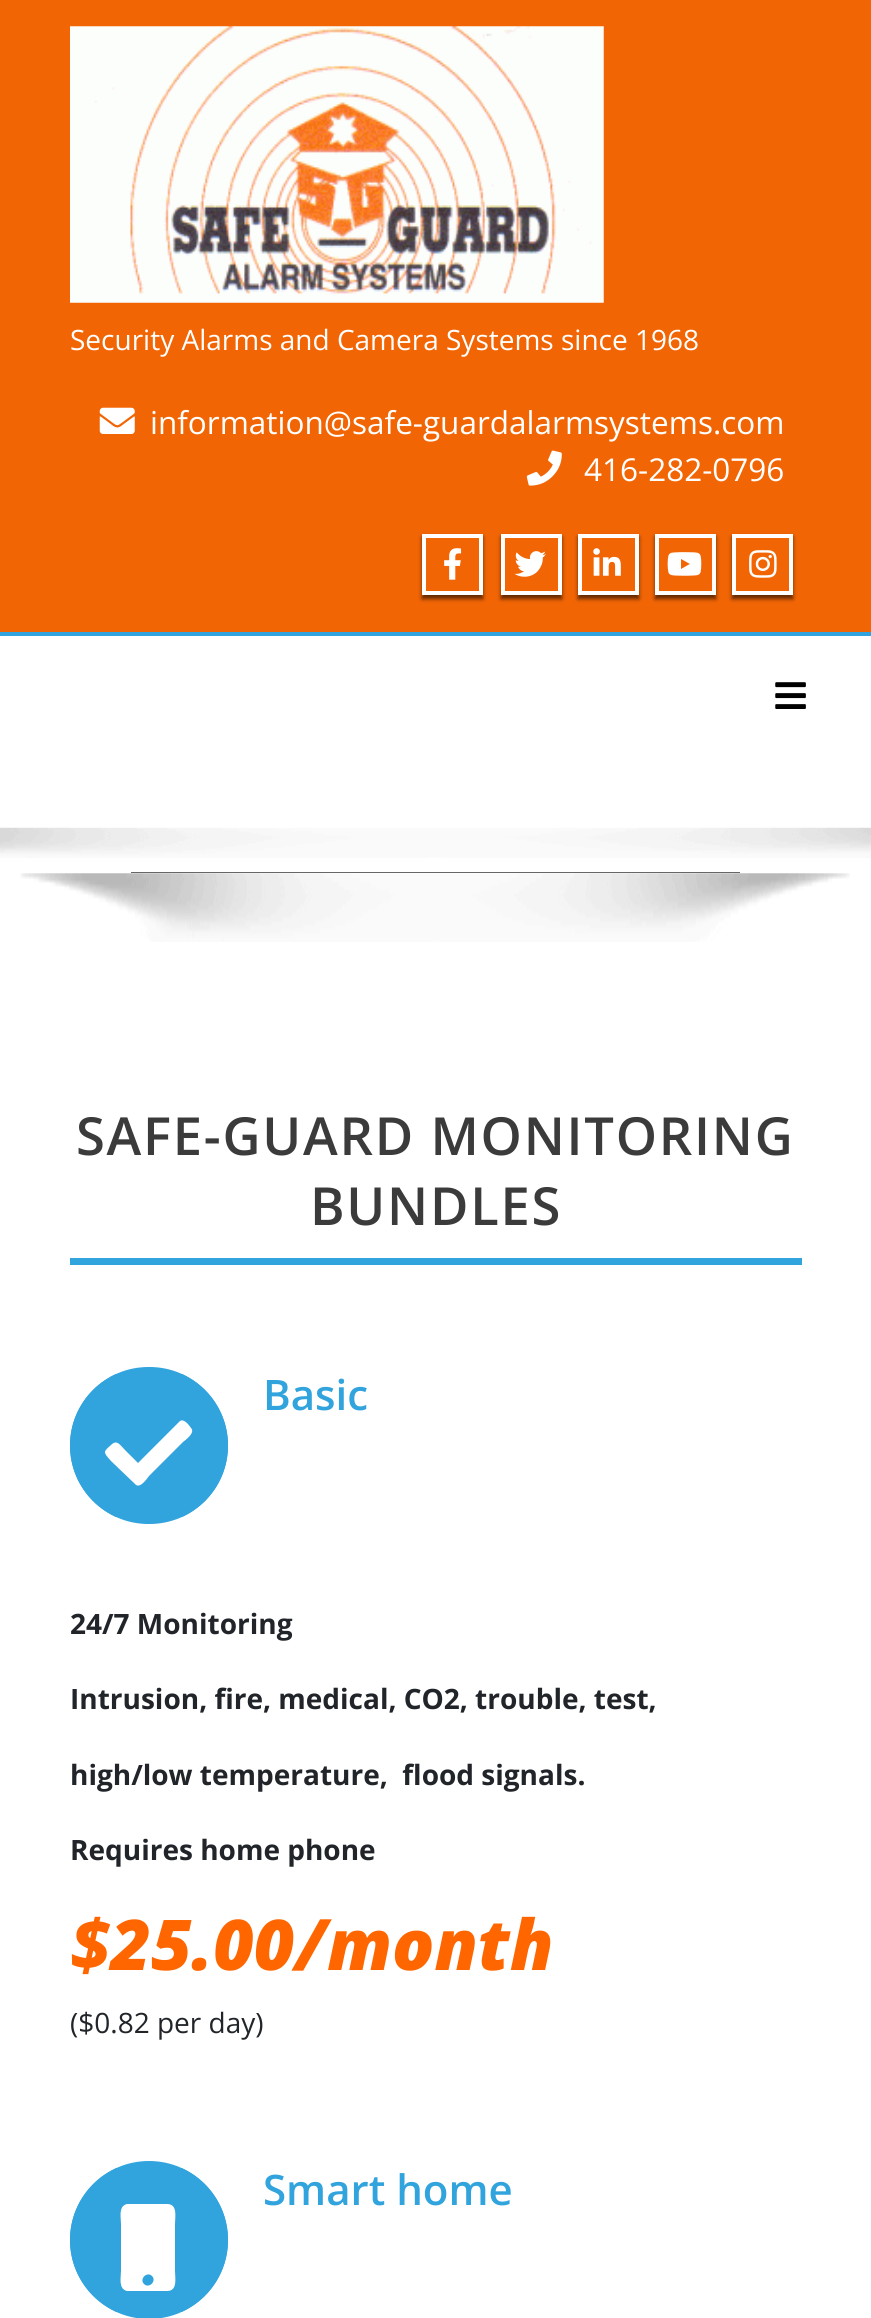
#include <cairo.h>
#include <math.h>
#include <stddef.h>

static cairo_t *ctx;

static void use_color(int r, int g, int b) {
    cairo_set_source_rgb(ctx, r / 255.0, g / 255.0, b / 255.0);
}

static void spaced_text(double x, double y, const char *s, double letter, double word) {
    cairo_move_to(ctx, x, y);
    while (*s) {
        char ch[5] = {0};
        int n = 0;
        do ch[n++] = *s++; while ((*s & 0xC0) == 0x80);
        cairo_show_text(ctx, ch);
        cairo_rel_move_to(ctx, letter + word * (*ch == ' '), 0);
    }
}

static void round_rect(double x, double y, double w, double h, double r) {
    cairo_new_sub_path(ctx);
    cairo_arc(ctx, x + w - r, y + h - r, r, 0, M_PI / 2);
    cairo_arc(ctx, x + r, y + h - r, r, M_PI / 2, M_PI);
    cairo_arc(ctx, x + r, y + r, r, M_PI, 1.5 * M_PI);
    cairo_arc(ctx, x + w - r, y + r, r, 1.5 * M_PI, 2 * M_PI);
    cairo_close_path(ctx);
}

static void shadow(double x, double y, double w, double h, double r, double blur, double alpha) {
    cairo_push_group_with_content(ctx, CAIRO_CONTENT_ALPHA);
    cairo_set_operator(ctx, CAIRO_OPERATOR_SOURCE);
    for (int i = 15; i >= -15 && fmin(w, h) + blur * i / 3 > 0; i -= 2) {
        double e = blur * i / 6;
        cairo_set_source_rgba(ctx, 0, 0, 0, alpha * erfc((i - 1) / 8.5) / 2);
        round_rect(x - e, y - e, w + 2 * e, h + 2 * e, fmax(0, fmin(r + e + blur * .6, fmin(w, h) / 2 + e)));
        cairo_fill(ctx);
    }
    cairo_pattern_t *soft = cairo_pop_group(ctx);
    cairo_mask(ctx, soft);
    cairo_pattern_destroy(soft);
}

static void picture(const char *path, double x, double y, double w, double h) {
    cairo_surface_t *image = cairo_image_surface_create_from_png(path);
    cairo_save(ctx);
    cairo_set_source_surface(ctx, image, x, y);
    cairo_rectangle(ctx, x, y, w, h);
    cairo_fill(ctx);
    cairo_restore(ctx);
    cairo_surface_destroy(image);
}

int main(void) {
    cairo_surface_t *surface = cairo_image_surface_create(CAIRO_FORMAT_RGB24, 871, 2318);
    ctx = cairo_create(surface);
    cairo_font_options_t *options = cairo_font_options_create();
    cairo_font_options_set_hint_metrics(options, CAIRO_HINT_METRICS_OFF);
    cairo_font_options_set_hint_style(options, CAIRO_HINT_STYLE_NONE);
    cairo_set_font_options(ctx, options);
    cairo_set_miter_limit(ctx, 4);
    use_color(255, 255, 255);
    cairo_paint(ctx);
    use_color(242, 101, 5);
    cairo_rectangle(ctx, 0, 0, 871, 632);
    cairo_fill(ctx);
    picture("img1.png", 70, 26, 534, 277);
    cairo_select_font_face(ctx, "Open Sans", CAIRO_FONT_SLANT_NORMAL, CAIRO_FONT_WEIGHT_NORMAL);
    cairo_set_font_size(ctx, 28);
    use_color(255, 255, 255);
    cairo_move_to(ctx, 70, 350);
    cairo_show_text(ctx, "Security Alarms and Camera Systems since 1968");
    picture("img2.png", 99, 407, 36, 27);
    cairo_set_font_size(ctx, 31.5);
    cairo_move_to(ctx, 150, 434);
    cairo_show_text(ctx, "information@safe-guardalarmsystems.com");
    picture("img3.png", 526, 450, 36, 36);
    cairo_move_to(ctx, 584, 481);
    cairo_show_text(ctx, "416-282-0796");
    cairo_save(ctx);
    cairo_set_fill_rule(ctx, CAIRO_FILL_RULE_EVEN_ODD);
    cairo_new_path(ctx);
    cairo_move_to(ctx, 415, 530);
    cairo_line_to(ctx, 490, 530);
    cairo_line_to(ctx, 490, 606);
    cairo_line_to(ctx, 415, 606);
    cairo_close_path(ctx);
    cairo_move_to(ctx, 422, 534);
    cairo_line_to(ctx, 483, 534);
    cairo_line_to(ctx, 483, 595);
    cairo_line_to(ctx, 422, 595);
    cairo_close_path(ctx);
    cairo_clip(ctx);
    use_color(0, 0, 0);
    shadow(422, 537, 61, 62, 0, 2, 0.6);
    cairo_restore(ctx);
    cairo_rectangle(ctx, 424, 536, 57, 57);
    cairo_set_line_width(ctx, 4);
    cairo_stroke(ctx);
    picture("img4.png", 444, 548, 18, 32);
    cairo_save(ctx);
    cairo_set_fill_rule(ctx, CAIRO_FILL_RULE_EVEN_ODD);
    cairo_new_path(ctx);
    cairo_move_to(ctx, 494, 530);
    cairo_line_to(ctx, 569, 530);
    cairo_line_to(ctx, 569, 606);
    cairo_line_to(ctx, 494, 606);
    cairo_close_path(ctx);
    cairo_move_to(ctx, 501, 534);
    cairo_line_to(ctx, 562, 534);
    cairo_line_to(ctx, 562, 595);
    cairo_line_to(ctx, 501, 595);
    cairo_close_path(ctx);
    cairo_clip(ctx);
    use_color(0, 0, 0);
    shadow(501, 537, 61, 62, 0, 2, 0.6);
    cairo_restore(ctx);
    cairo_rectangle(ctx, 503, 536, 57, 57);
    cairo_stroke(ctx);
    picture("img5.png", 514, 551, 32, 26);
    cairo_save(ctx);
    cairo_set_fill_rule(ctx, CAIRO_FILL_RULE_EVEN_ODD);
    cairo_new_path(ctx);
    cairo_move_to(ctx, 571, 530);
    cairo_line_to(ctx, 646, 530);
    cairo_line_to(ctx, 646, 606);
    cairo_line_to(ctx, 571, 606);
    cairo_close_path(ctx);
    cairo_move_to(ctx, 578, 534);
    cairo_line_to(ctx, 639, 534);
    cairo_line_to(ctx, 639, 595);
    cairo_line_to(ctx, 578, 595);
    cairo_close_path(ctx);
    cairo_clip(ctx);
    use_color(0, 0, 0);
    shadow(578, 537, 61, 62, 0, 2, 0.6);
    cairo_restore(ctx);
    cairo_rectangle(ctx, 580, 536, 57, 57);
    cairo_stroke(ctx);
    picture("img6.png", 593, 548, 28, 28);
    cairo_save(ctx);
    cairo_set_fill_rule(ctx, CAIRO_FILL_RULE_EVEN_ODD);
    cairo_new_path(ctx);
    cairo_move_to(ctx, 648, 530);
    cairo_line_to(ctx, 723, 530);
    cairo_line_to(ctx, 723, 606);
    cairo_line_to(ctx, 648, 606);
    cairo_close_path(ctx);
    cairo_move_to(ctx, 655, 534);
    cairo_line_to(ctx, 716, 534);
    cairo_line_to(ctx, 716, 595);
    cairo_line_to(ctx, 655, 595);
    cairo_close_path(ctx);
    cairo_clip(ctx);
    use_color(0, 0, 0);
    shadow(655, 537, 61, 62, 0, 2, 0.6);
    cairo_restore(ctx);
    cairo_rectangle(ctx, 657, 536, 57, 57);
    cairo_stroke(ctx);
    picture("img7.png", 667, 552, 35, 24);
    cairo_save(ctx);
    cairo_set_fill_rule(ctx, CAIRO_FILL_RULE_EVEN_ODD);
    cairo_new_path(ctx);
    cairo_move_to(ctx, 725, 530);
    cairo_line_to(ctx, 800, 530);
    cairo_line_to(ctx, 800, 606);
    cairo_line_to(ctx, 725, 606);
    cairo_close_path(ctx);
    cairo_move_to(ctx, 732, 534);
    cairo_line_to(ctx, 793, 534);
    cairo_line_to(ctx, 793, 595);
    cairo_line_to(ctx, 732, 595);
    cairo_close_path(ctx);
    cairo_clip(ctx);
    use_color(0, 0, 0);
    shadow(732, 537, 61, 62, 0, 2, 0.6);
    cairo_restore(ctx);
    cairo_rectangle(ctx, 734, 536, 57, 57);
    cairo_stroke(ctx);
    picture("img8.png", 749, 550, 28, 28);
    use_color(49, 163, 221);
    cairo_rectangle(ctx, 0, 632, 871, 4);
    cairo_fill(ctx);
    picture("img9.png", 775, 682, 31, 27);
    picture("img10.png", 0, 827, 871, 31);
    use_color(102, 102, 102);
    cairo_rectangle(ctx, 131, 872, 609, 1);
    cairo_fill(ctx);
    picture("img11.png", 20, 873, 830, 69);
    use_color(49, 163, 221);
    cairo_rectangle(ctx, 70, 1258, 732, 7);
    cairo_fill(ctx);
    cairo_select_font_face(ctx, "Open Sans SemiBold", CAIRO_FONT_SLANT_NORMAL, CAIRO_FONT_WEIGHT_NORMAL);
    cairo_set_font_size(ctx, 52.5);
    use_color(59, 59, 59);
    spaced_text(76, 1155, "SAFE-GUARD MONITORING", 1.75, 0);
    spaced_text(310, 1225, "BUNDLES", 1.75, 0);
    cairo_save(ctx);
    round_rect(70, 1367, 158, 157, 78.5);
    cairo_clip(ctx);
    use_color(49, 163, 221);
    cairo_rectangle(ctx, 70, 1374, 158, 143);
    cairo_fill(ctx);
    cairo_restore(ctx);
    round_rect(73.5, 1370.5, 151, 150, 75);
    use_color(49, 163, 221);
    cairo_set_line_width(ctx, 7);
    cairo_stroke(ctx);
    use_color(255, 255, 255);
    cairo_new_path(ctx);
    cairo_move_to(ctx, 135, 1484);
    cairo_line_to(ctx, 111, 1461);
    cairo_curve_to(ctx, 103, 1452, 103, 1452, 111, 1445);
    cairo_curve_to(ctx, 117, 1439, 120, 1445, 125, 1450);
    cairo_line_to(ctx, 138, 1463);
    cairo_line_to(ctx, 179, 1422);
    cairo_curve_to(ctx, 183, 1417, 189, 1425, 191, 1428);
    cairo_curve_to(ctx, 196, 1433, 184, 1441, 183, 1442);
    cairo_line_to(ctx, 149, 1476);
    cairo_curve_to(ctx, 148, 1477, 140, 1490, 135, 1484);
    cairo_close_path(ctx);
    cairo_fill(ctx);
    cairo_set_font_size(ctx, 42);
    use_color(49, 163, 221);
    cairo_move_to(ctx, 263, 1410);
    cairo_show_text(ctx, "Basic");
    cairo_select_font_face(ctx, "Open Sans", CAIRO_FONT_SLANT_NORMAL, CAIRO_FONT_WEIGHT_BOLD);
    cairo_set_font_size(ctx, 28);
    use_color(33, 37, 41);
    cairo_move_to(ctx, 70, 1634);
    cairo_show_text(ctx, "24/7 Monitoring");
    cairo_move_to(ctx, 70, 1709);
    cairo_show_text(ctx, "Intrusion, fire, medical, CO2, trouble, test,");
    cairo_move_to(ctx, 70, 1785);
    cairo_show_text(ctx, "high/low temperature,  flood signals.");
    cairo_move_to(ctx, 70, 1860);
    cairo_show_text(ctx, "Requires home phone");
    cairo_select_font_face(ctx, "Open Sans ExtraBold", CAIRO_FONT_SLANT_ITALIC, CAIRO_FONT_WEIGHT_NORMAL);
    cairo_set_font_size(ctx, 70);
    use_color(255, 102, 0);
    cairo_move_to(ctx, 70, 1970);
    cairo_show_text(ctx, "$25.00/month");
    cairo_select_font_face(ctx, "Open Sans", CAIRO_FONT_SLANT_NORMAL, CAIRO_FONT_WEIGHT_NORMAL);
    cairo_set_font_size(ctx, 28);
    use_color(33, 37, 41);
    cairo_move_to(ctx, 70, 2033);
    cairo_show_text(ctx, "($0.82 per day)");
    cairo_save(ctx);
    round_rect(70, 2161, 158, 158, 79);
    cairo_clip(ctx);
    use_color(49, 163, 221);
    cairo_rectangle(ctx, 70, 2168, 158, 144);
    cairo_fill(ctx);
    cairo_restore(ctx);
    cairo_arc(ctx, 149, 2240, 75.5, 0, 2 * M_PI);
    use_color(49, 163, 221);
    cairo_stroke(ctx);
    use_color(255, 255, 255);
    cairo_new_path(ctx);
    cairo_move_to(ctx, 167, 2204);
    cairo_curve_to(ctx, 178, 2204, 175, 2217, 175, 2224);
    cairo_line_to(ctx, 175, 2271);
    cairo_curve_to(ctx, 175, 2278, 178, 2291, 167, 2291);
    cairo_line_to(ctx, 127, 2291);
    cairo_curve_to(ctx, 118, 2289, 121, 2277, 121, 2271);
    cairo_line_to(ctx, 121, 2224);
    cairo_curve_to(ctx, 121, 2218, 118, 2206, 127, 2204);
    cairo_close_path(ctx);
    cairo_move_to(ctx, 144, 2284);
    cairo_curve_to(ctx, 149, 2289, 157, 2281, 152, 2276);
    cairo_curve_to(ctx, 147, 2271, 139, 2279, 144, 2284);
    cairo_close_path(ctx);
    cairo_fill(ctx);
    cairo_select_font_face(ctx, "Open Sans SemiBold", CAIRO_FONT_SLANT_NORMAL, CAIRO_FONT_WEIGHT_NORMAL);
    cairo_set_font_size(ctx, 42);
    use_color(49, 163, 221);
    cairo_move_to(ctx, 263, 2205);
    cairo_show_text(ctx, "Smart home");
    cairo_surface_write_to_png(surface, "result.png");
    cairo_font_options_destroy(options);
    cairo_destroy(ctx);
    cairo_surface_destroy(surface);
    return 0;
}
